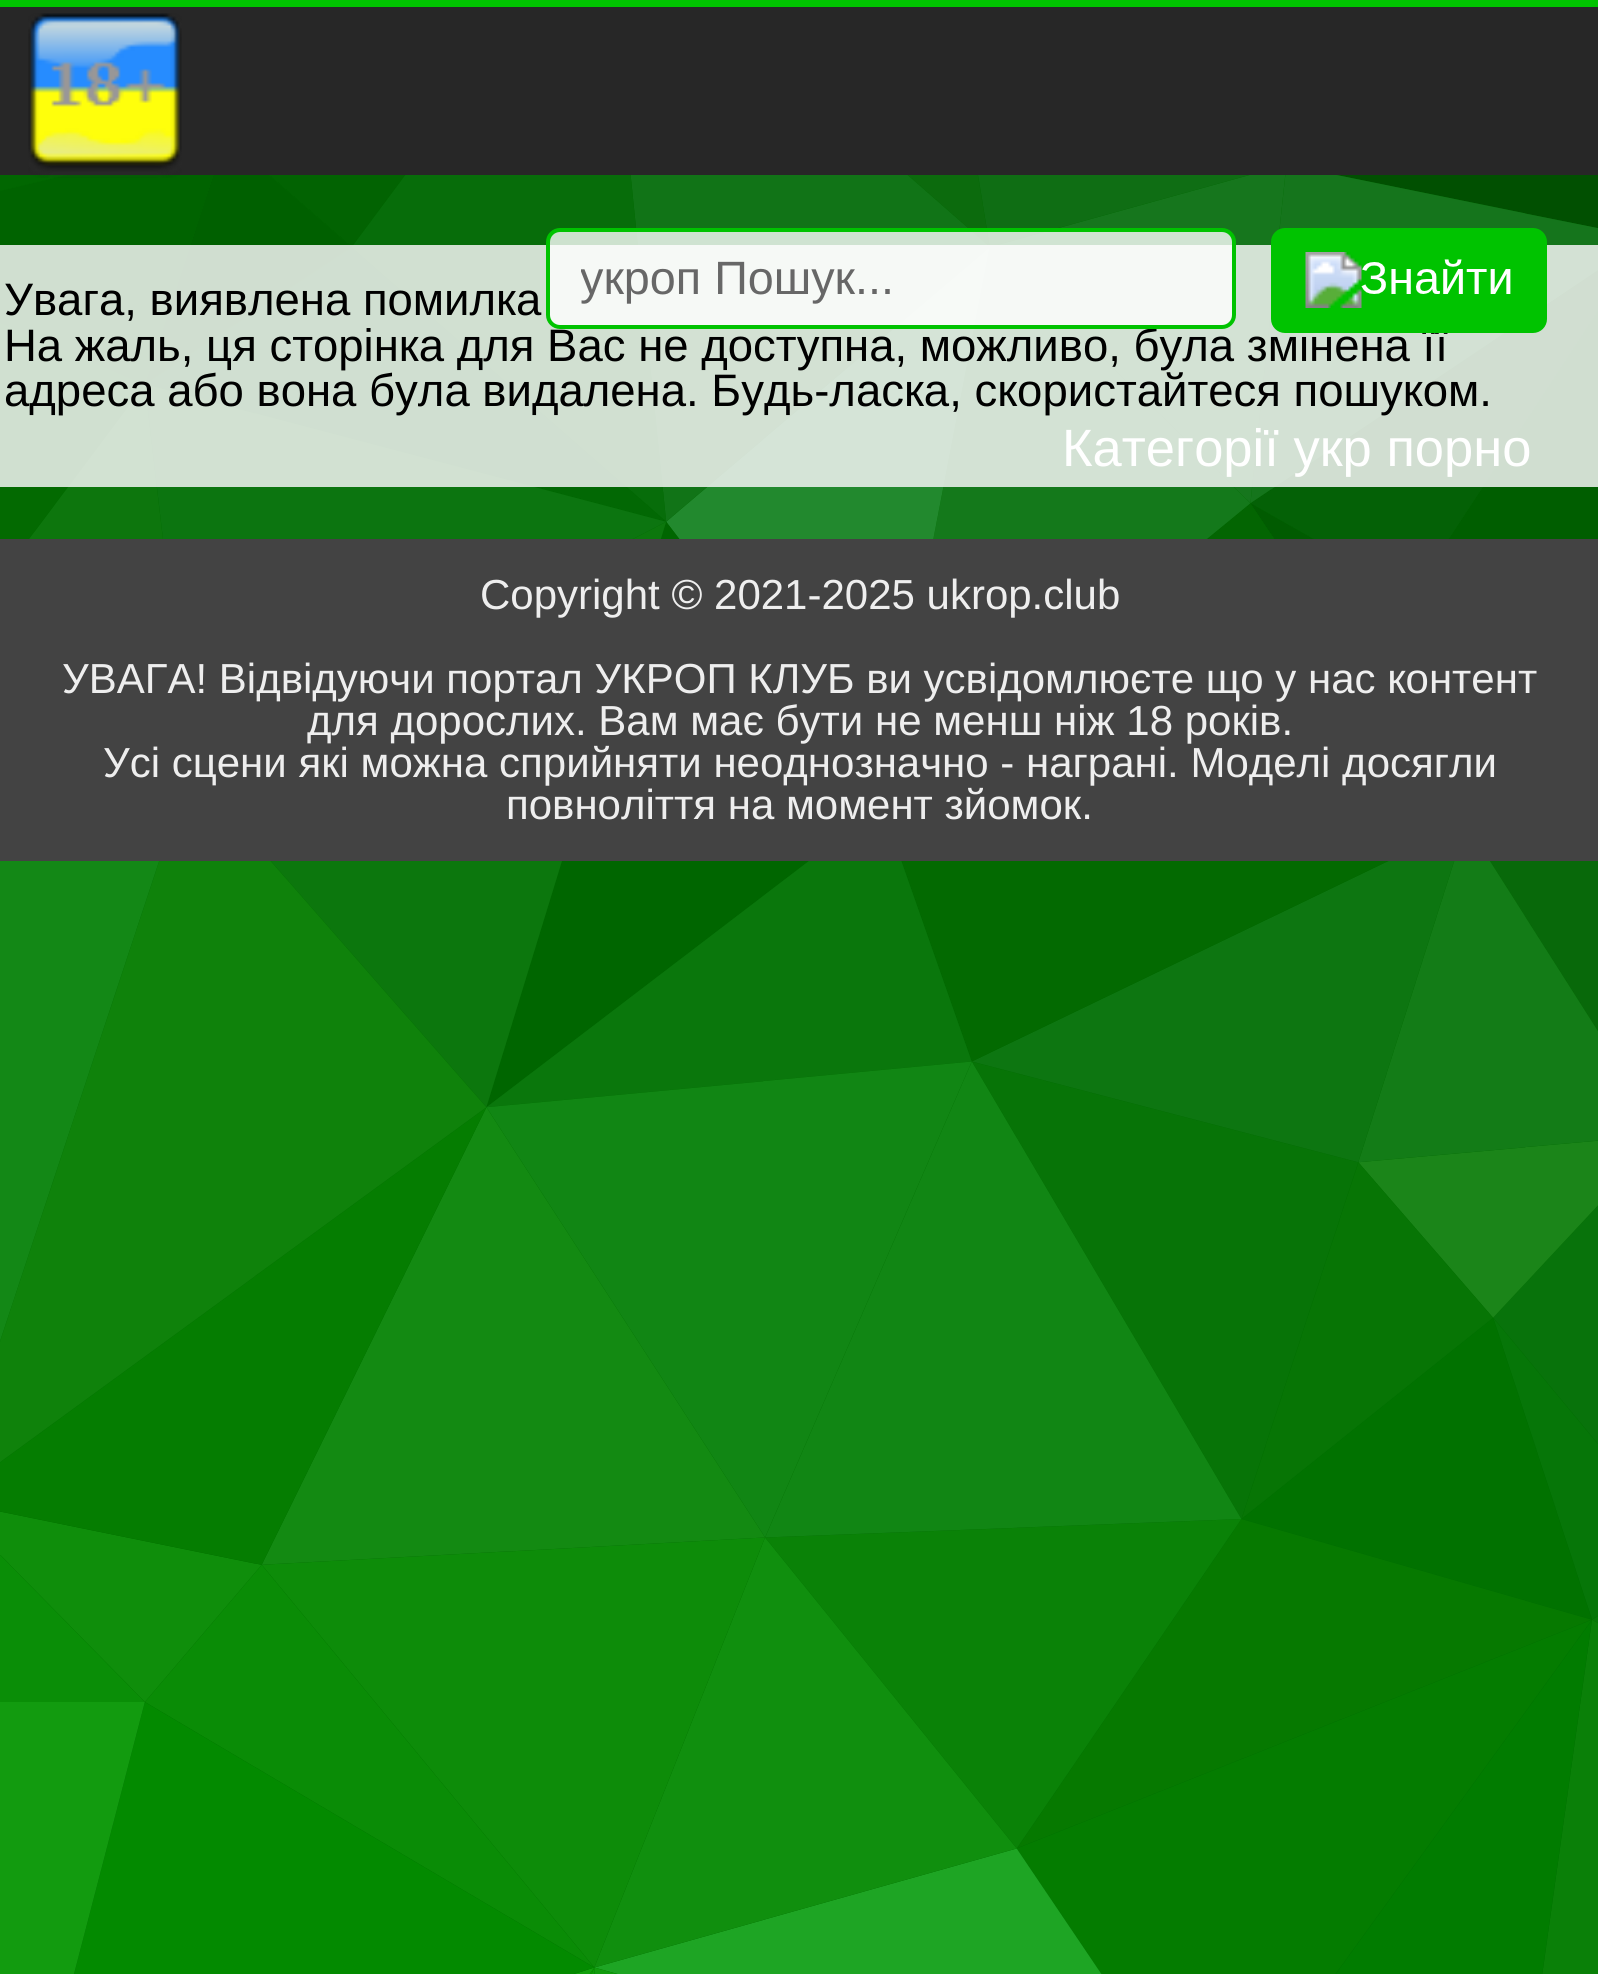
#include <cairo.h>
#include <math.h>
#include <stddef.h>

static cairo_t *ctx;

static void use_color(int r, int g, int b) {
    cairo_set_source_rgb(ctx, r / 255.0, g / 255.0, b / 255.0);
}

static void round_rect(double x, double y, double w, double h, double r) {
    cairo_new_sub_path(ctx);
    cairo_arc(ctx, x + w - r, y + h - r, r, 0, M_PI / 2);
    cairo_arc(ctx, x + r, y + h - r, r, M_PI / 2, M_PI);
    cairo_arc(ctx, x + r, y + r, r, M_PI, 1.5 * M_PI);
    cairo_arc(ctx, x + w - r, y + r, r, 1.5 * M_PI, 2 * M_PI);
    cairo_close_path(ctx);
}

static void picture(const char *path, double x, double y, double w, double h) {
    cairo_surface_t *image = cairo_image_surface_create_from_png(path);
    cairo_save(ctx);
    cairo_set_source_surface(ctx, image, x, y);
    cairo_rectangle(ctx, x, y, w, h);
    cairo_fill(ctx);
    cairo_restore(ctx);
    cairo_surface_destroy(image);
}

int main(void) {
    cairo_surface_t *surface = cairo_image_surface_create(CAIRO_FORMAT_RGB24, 1598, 1974);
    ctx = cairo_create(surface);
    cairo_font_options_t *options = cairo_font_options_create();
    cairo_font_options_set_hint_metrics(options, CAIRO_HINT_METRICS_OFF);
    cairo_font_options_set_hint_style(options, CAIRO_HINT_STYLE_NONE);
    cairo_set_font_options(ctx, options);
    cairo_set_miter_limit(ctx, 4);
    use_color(255, 255, 255);
    cairo_paint(ctx);
    picture("img1.png", 0, 175, 1598, 1799);
    use_color(39, 39, 39);
    cairo_rectangle(ctx, 0, 7, 1598, 168);
    cairo_fill(ctx);
    use_color(0, 195, 0);
    cairo_rectangle(ctx, 0, 0, 1598, 7);
    cairo_fill(ctx);
    picture("img2.png", 28, 13, 154, 165);
    cairo_set_source_rgba(ctx, 0.957, 0.957, 0.957, 0.85);
    cairo_rectangle(ctx, 0, 245, 1598, 242);
    cairo_fill(ctx);
    cairo_select_font_face(ctx, "Liberation Sans", CAIRO_FONT_SLANT_NORMAL, CAIRO_FONT_WEIGHT_NORMAL);
    cairo_set_font_size(ctx, 45.5);
    use_color(0, 0, 0);
    cairo_move_to(ctx, 4, 361);
    cairo_show_text(ctx, "На жаль, ця сторінка для Вас не доступна, можливо, була змінена її");
    cairo_set_source_rgba(ctx, 1, 1, 1, 0.8);
    round_rect(548, 230, 686, 97, 12);
    cairo_fill_preserve(ctx);
    use_color(0, 195, 0);
    cairo_set_line_width(ctx, 4);
    cairo_stroke(ctx);
    cairo_save(ctx);
    cairo_rectangle(ctx, 581, 252, 620, 53);
    cairo_clip(ctx);
    cairo_set_font_size(ctx, 46.75);
    use_color(103, 103, 103);
    cairo_move_to(ctx, 580, 294);
    cairo_show_text(ctx, "укроп Пошук...");
    cairo_restore(ctx);
    round_rect(1271, 228, 276, 105, 14);
    cairo_fill(ctx);
    picture("img3.png", 1305, 252, 206, 56);
    cairo_set_font_size(ctx, 52.5);
    use_color(255, 255, 255);
    cairo_move_to(ctx, 1062, 466);
    cairo_show_text(ctx, "Категорії укр порно");
    cairo_set_font_size(ctx, 45.5);
    use_color(0, 0, 0);
    cairo_move_to(ctx, 4, 315);
    cairo_show_text(ctx, "Увага, виявлена помилка");
    cairo_move_to(ctx, 4, 406);
    cairo_show_text(ctx, "адреса або вона була видалена. Будь-ласка, скористайтеся пошуком.");
    use_color(67, 67, 67);
    cairo_rectangle(ctx, 0, 539, 1598, 322);
    cairo_fill(ctx);
    cairo_set_font_size(ctx, 42);
    use_color(238, 238, 238);
    cairo_move_to(ctx, 480, 609);
    cairo_show_text(ctx, "Copyright © 2021-2025 ukrop.club");
    cairo_move_to(ctx, 62, 693);
    cairo_show_text(ctx, "УВАГА! Відвідуючи портал УКРОП КЛУБ ви усвідомлюєте що у нас контент");
    cairo_move_to(ctx, 307, 735);
    cairo_show_text(ctx, "для дорослих. Вам має бути не менш ніж 18 років.");
    cairo_move_to(ctx, 103, 777);
    cairo_show_text(ctx, "Усі сцени які можна сприйняти неоднозначно - награні. Моделі досягли");
    cairo_move_to(ctx, 506, 819);
    cairo_show_text(ctx, "повноліття на момент зйомок.");
    cairo_surface_write_to_png(surface, "result.png");
    cairo_font_options_destroy(options);
    cairo_destroy(ctx);
    cairo_surface_destroy(surface);
    return 0;
}
